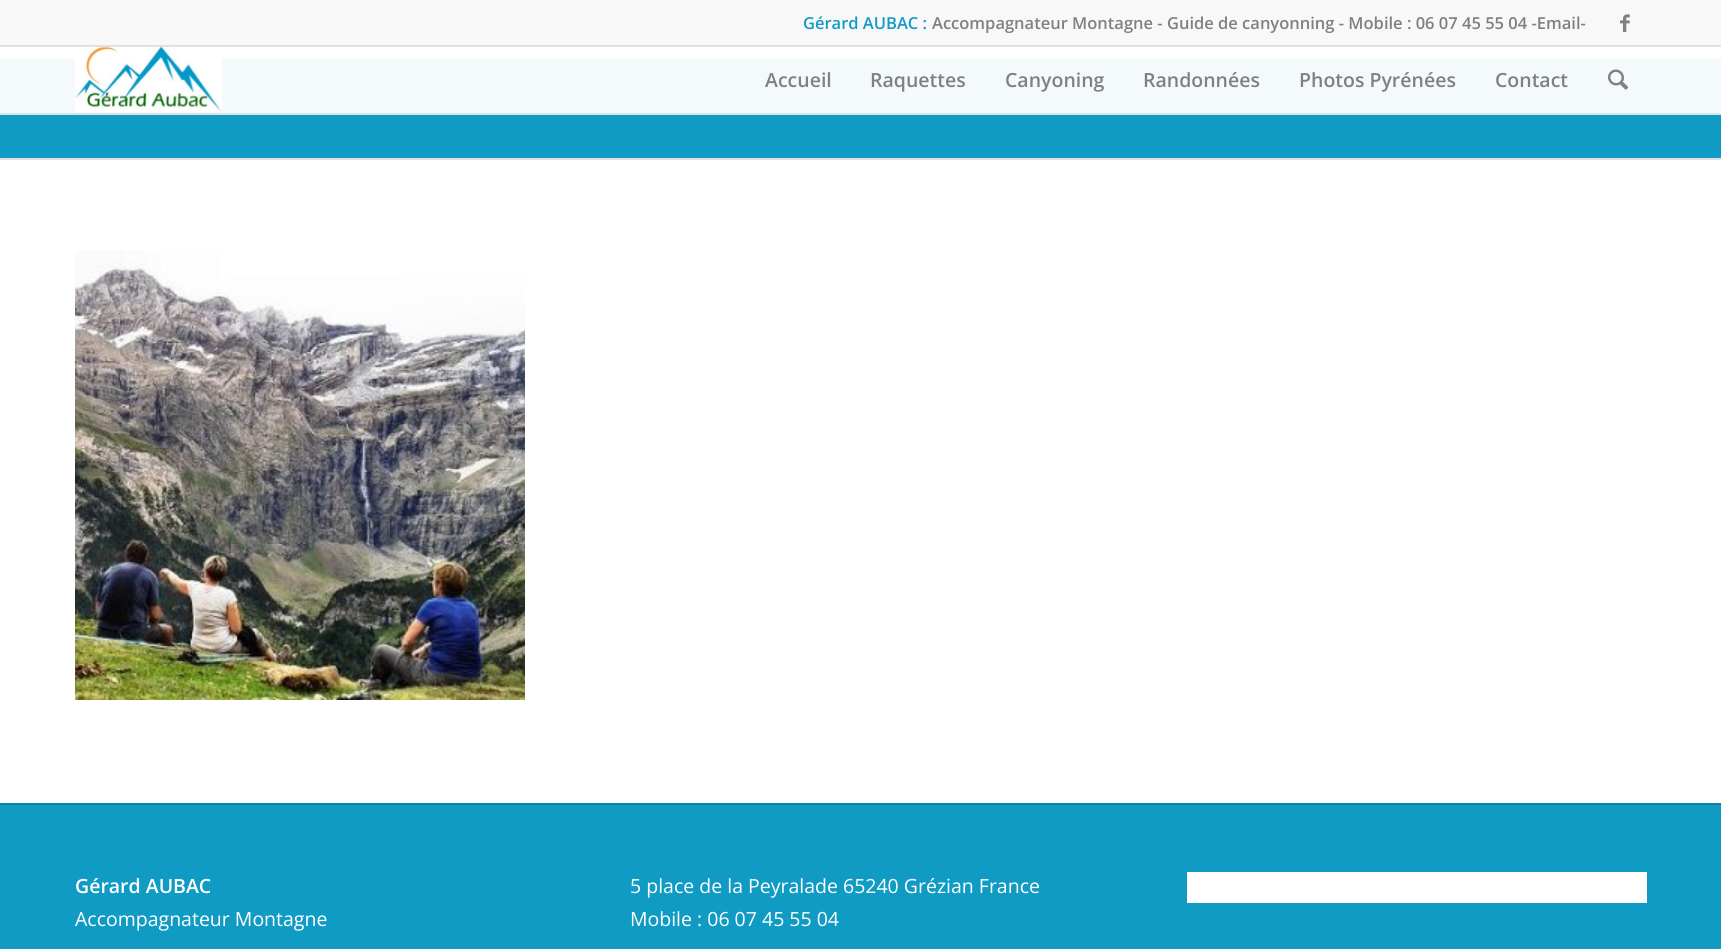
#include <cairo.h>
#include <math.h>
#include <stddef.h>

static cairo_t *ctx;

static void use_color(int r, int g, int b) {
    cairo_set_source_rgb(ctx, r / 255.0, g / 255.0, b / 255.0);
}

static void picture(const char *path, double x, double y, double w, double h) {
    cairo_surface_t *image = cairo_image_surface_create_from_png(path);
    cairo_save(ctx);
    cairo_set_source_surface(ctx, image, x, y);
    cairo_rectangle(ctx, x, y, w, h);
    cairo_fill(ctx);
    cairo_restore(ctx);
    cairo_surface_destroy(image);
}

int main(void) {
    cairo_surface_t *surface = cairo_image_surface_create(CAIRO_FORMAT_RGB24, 1721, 949);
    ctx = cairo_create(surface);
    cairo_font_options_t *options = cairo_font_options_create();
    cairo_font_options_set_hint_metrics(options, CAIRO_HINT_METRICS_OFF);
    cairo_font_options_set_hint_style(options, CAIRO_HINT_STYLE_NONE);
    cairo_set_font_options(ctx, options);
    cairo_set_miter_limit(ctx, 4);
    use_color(255, 255, 255);
    cairo_paint(ctx);
    use_color(248, 248, 248);
    cairo_rectangle(ctx, 0, 0, 1721, 45);
    cairo_fill(ctx);
    use_color(225, 225, 225);
    cairo_rectangle(ctx, 0, 45, 1721, 2);
    cairo_fill(ctx);
    cairo_select_font_face(ctx, "Open Sans SemiBold", CAIRO_FONT_SLANT_NORMAL, CAIRO_FONT_WEIGHT_NORMAL);
    cairo_set_font_size(ctx, 16.5);
    use_color(16, 155, 197);
    cairo_move_to(ctx, 803, 29);
    cairo_show_text(ctx, "Gérard AUBAC :");
    use_color(128, 128, 128);
    cairo_move_to(ctx, 932, 29);
    cairo_show_text(ctx, "Accompagnateur Montagne - Guide de canyonning - Mobile : 06 07 45 55 04 -Email-");
    picture("img1.png", 1620, 14, 10, 18);
    use_color(16, 155, 197);
    cairo_rectangle(ctx, 0, 59, 1721, 99);
    cairo_fill(ctx);
    use_color(131, 199, 220);
    cairo_rectangle(ctx, 0, 57, 1721, 2);
    cairo_fill(ctx);
    cairo_set_source_rgba(ctx, 1, 1, 1, 0.95);
    cairo_rectangle(ctx, 0, 57, 1721, 56);
    cairo_fill(ctx);
    use_color(225, 225, 225);
    cairo_rectangle(ctx, 0, 113, 1721, 2);
    cairo_fill(ctx);
    picture("img2.png", 75, 47, 147, 66);
    cairo_set_font_size(ctx, 19.5);
    use_color(128, 128, 128);
    cairo_move_to(ctx, 765, 87);
    cairo_show_text(ctx, "Accueil");
    cairo_move_to(ctx, 870, 87);
    cairo_show_text(ctx, "Raquettes");
    cairo_move_to(ctx, 1005, 87);
    cairo_show_text(ctx, "Canyoning");
    cairo_move_to(ctx, 1143, 87);
    cairo_show_text(ctx, "Randonnées");
    cairo_move_to(ctx, 1299, 87);
    cairo_show_text(ctx, "Photos Pyrénées");
    cairo_move_to(ctx, 1495, 87);
    cairo_show_text(ctx, "Contact");
    picture("img3.png", 1608, 69, 21, 21);
    use_color(225, 225, 225);
    cairo_rectangle(ctx, 0, 158, 1721, 2);
    cairo_fill(ctx);
    picture("img4.png", 75, 250, 450, 450);
    use_color(16, 155, 197);
    cairo_rectangle(ctx, 0, 805, 1721, 144);
    cairo_fill(ctx);
    use_color(15, 129, 161);
    cairo_rectangle(ctx, 0, 803, 1721, 2);
    cairo_fill(ctx);
    use_color(255, 255, 255);
    cairo_move_to(ctx, 75, 893);
    cairo_show_text(ctx, "Gérard AUBAC");
    cairo_select_font_face(ctx, "Open Sans", CAIRO_FONT_SLANT_NORMAL, CAIRO_FONT_WEIGHT_NORMAL);
    cairo_move_to(ctx, 75, 926);
    cairo_show_text(ctx, "Accompagnateur Montagne");
    cairo_move_to(ctx, 630, 893);
    cairo_show_text(ctx, "5 place de la Peyralade 65240 Grézian France");
    cairo_move_to(ctx, 630, 926);
    cairo_show_text(ctx, "Mobile : 06 07 45 55 04");
    cairo_rectangle(ctx, 1187, 872, 460, 31);
    cairo_fill(ctx);
    cairo_surface_write_to_png(surface, "result.png");
    cairo_font_options_destroy(options);
    cairo_destroy(ctx);
    cairo_surface_destroy(surface);
    return 0;
}
